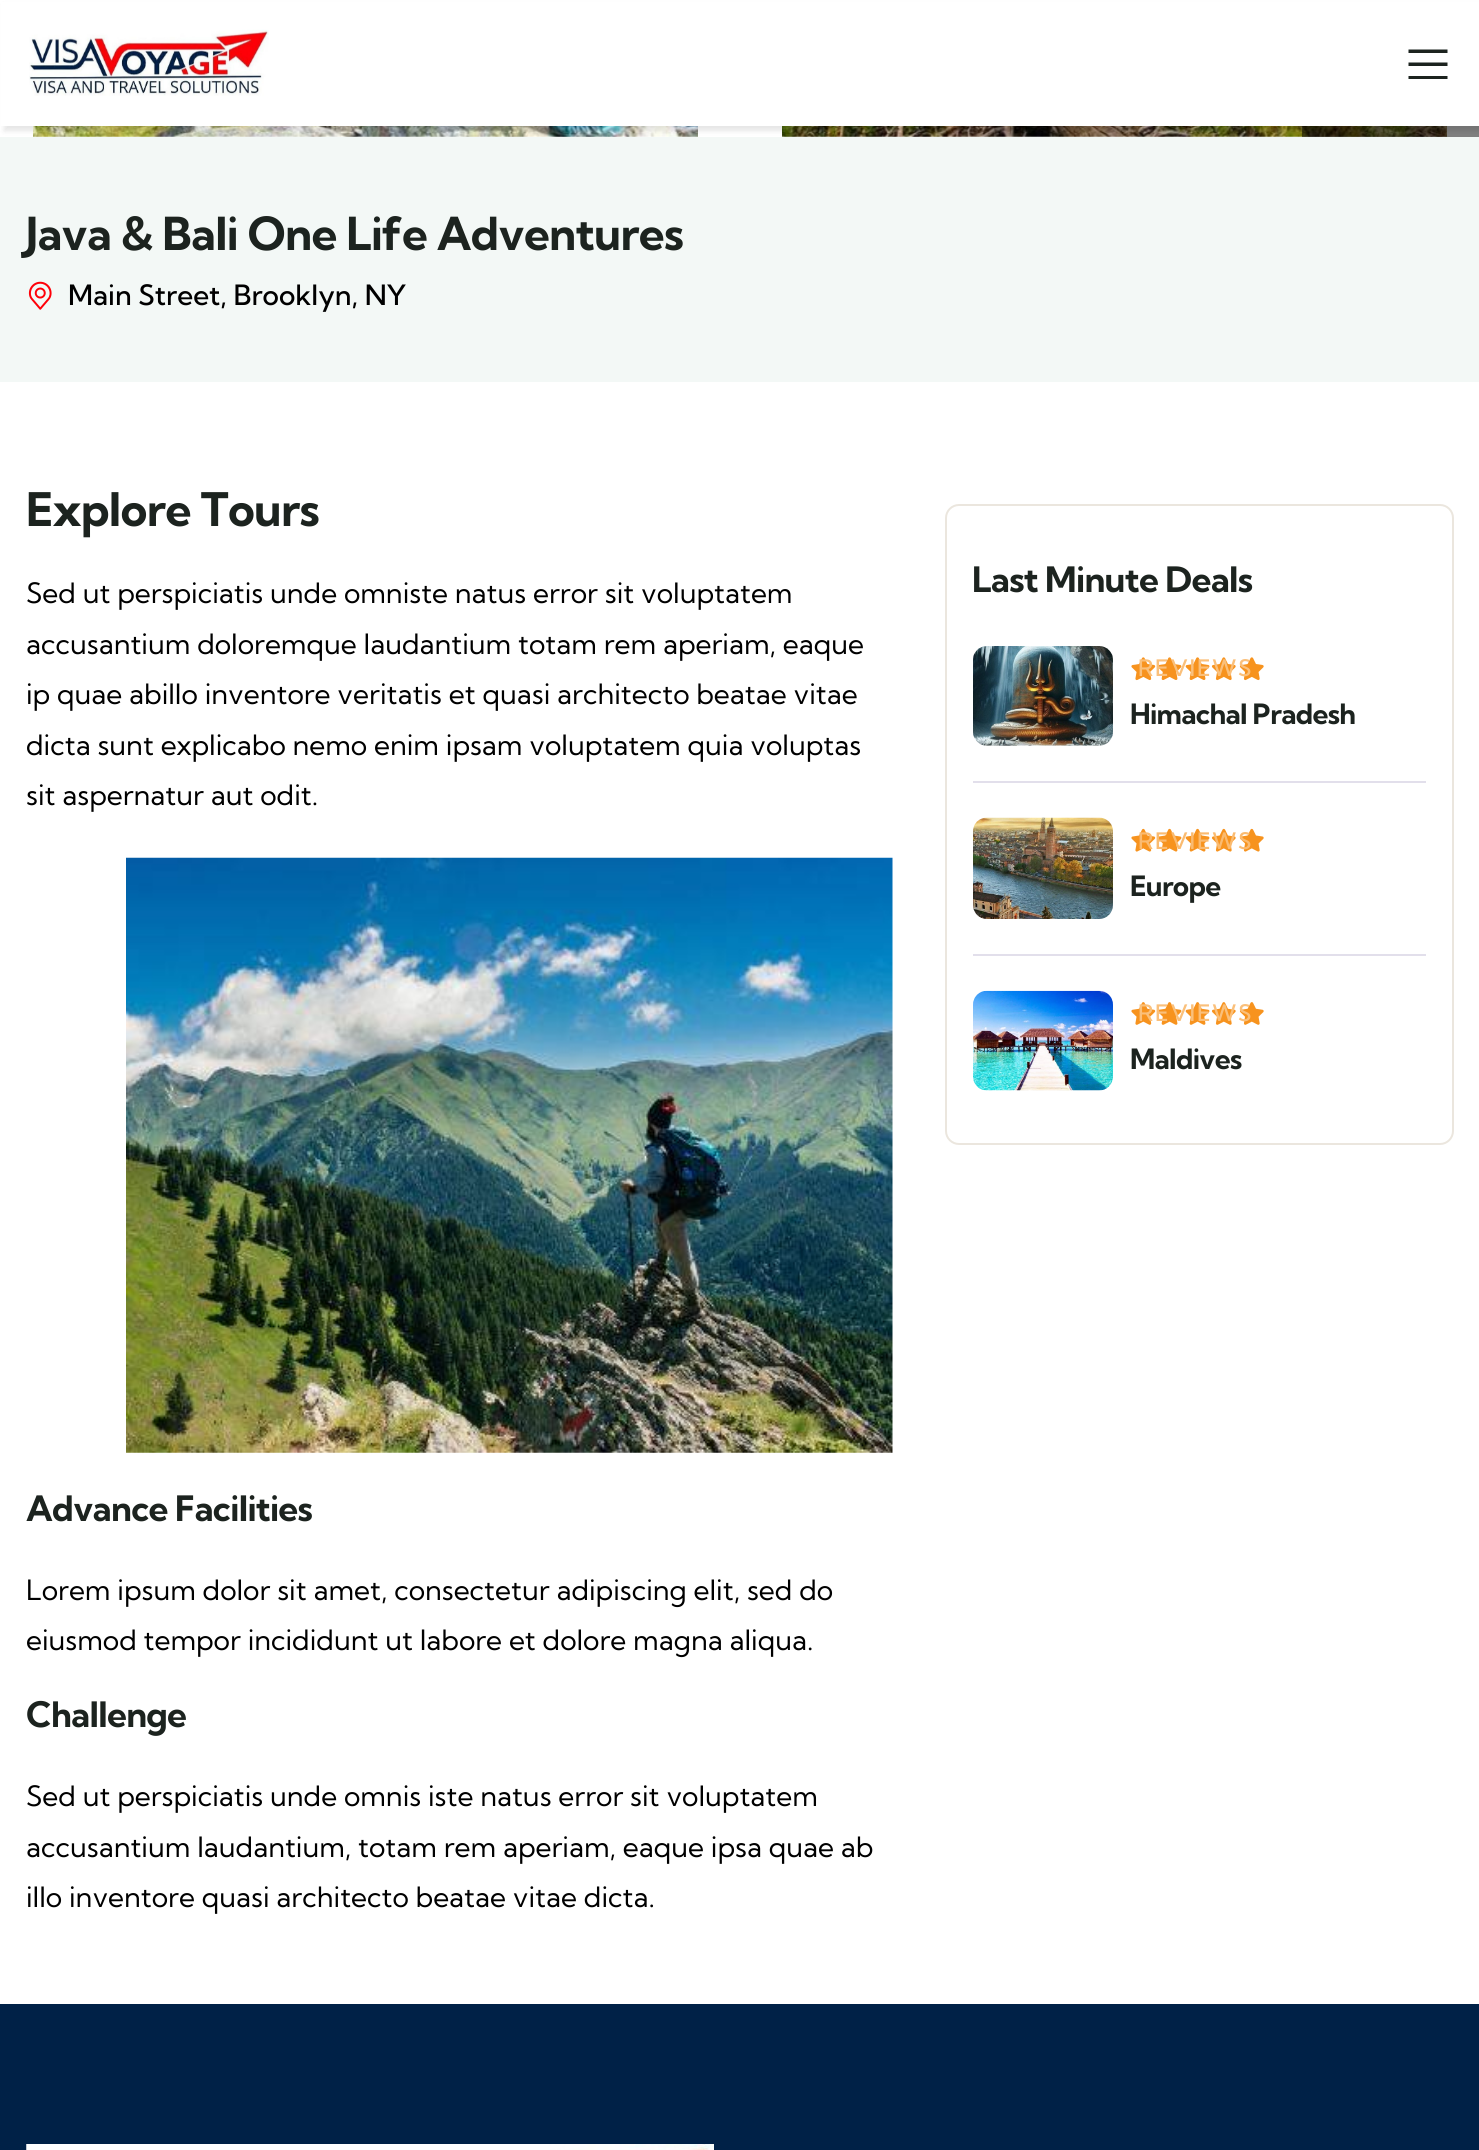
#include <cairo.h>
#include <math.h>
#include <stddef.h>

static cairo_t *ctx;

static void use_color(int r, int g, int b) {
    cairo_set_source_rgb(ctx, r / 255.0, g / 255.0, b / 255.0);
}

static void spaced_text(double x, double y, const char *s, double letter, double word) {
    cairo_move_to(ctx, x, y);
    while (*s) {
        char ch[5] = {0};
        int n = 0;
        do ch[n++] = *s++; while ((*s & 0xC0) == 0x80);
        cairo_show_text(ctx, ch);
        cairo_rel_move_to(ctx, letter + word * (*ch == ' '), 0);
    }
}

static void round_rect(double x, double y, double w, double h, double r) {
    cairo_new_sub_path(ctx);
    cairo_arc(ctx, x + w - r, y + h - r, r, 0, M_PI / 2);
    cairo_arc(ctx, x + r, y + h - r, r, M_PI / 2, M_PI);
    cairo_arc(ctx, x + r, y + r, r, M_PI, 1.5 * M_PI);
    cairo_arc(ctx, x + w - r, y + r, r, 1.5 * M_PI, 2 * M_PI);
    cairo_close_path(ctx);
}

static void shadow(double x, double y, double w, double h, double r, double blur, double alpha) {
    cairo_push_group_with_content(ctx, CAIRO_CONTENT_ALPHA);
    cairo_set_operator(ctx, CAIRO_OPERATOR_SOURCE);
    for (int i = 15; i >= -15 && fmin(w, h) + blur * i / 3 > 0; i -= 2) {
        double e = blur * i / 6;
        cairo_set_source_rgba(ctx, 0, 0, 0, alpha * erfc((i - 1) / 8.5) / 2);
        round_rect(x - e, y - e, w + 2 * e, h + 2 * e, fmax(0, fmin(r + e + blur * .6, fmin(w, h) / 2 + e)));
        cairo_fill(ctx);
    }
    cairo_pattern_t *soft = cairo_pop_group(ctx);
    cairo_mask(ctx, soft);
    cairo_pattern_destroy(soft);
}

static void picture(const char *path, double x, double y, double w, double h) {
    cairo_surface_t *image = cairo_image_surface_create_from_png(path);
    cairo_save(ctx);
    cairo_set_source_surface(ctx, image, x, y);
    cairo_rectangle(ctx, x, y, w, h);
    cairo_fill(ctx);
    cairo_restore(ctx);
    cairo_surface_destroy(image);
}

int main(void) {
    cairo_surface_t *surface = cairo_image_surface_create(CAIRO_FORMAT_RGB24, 1479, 2150);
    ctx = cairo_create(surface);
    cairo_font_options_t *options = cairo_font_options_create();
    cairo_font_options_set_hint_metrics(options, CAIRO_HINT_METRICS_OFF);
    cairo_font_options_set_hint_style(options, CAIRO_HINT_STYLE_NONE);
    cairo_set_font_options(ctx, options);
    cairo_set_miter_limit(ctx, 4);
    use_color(255, 255, 255);
    cairo_paint(ctx);
    picture("img2.png", 33, 126, 665, 11);
    picture("img3.png", 782, 126, 665, 11);
    cairo_set_source_rgba(ctx, 0, 0, 0, 0.5);
    cairo_rectangle(ctx, 1302, 126, 177, 11);
    cairo_fill(ctx);
    use_color(243, 248, 246);
    cairo_rectangle(ctx, 0, 137, 1479, 245);
    cairo_fill(ctx);
    use_color(0, 0, 0);
    shadow(4, 5, 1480, 126, 0, 2.5, 0.1);
    use_color(255, 255, 255);
    cairo_rectangle(ctx, 1, 2, 1478, 124);
    cairo_fill(ctx);
    picture("img1.png", 29, 29, 240, 67);
    use_color(28, 35, 31);
    cairo_new_path(ctx);
    cairo_move_to(ctx, 1408.5, 49.5);
    cairo_line_to(ctx, 1408.5, 53);
    cairo_line_to(ctx, 1447.5, 53);
    cairo_line_to(ctx, 1447.5, 49.5);
    cairo_close_path(ctx);
    cairo_move_to(ctx, 1408.5, 62.5);
    cairo_line_to(ctx, 1408.5, 66);
    cairo_line_to(ctx, 1447.5, 66);
    cairo_line_to(ctx, 1447.5, 62.5);
    cairo_close_path(ctx);
    cairo_move_to(ctx, 1408.5, 76);
    cairo_line_to(ctx, 1408.5, 79);
    cairo_line_to(ctx, 1447.5, 79);
    cairo_line_to(ctx, 1447.5, 76);
    cairo_close_path(ctx);
    cairo_fill(ctx);
    cairo_select_font_face(ctx, "Kumbh Sans", CAIRO_FONT_SLANT_NORMAL, CAIRO_FONT_WEIGHT_BOLD);
    cairo_set_font_size(ctx, 45.5);
    spaced_text(26, 250, "Java & Bali One Life Adventures", -0.7, 0);
    picture("img4.png", 28, 281, 24, 29);
    cairo_select_font_face(ctx, "Kumbh Sans Medium", CAIRO_FONT_SLANT_NORMAL, CAIRO_FONT_WEIGHT_NORMAL);
    cairo_set_font_size(ctx, 28);
    use_color(0, 0, 0);
    cairo_move_to(ctx, 68, 305);
    cairo_show_text(ctx, "Main Street, Brooklyn, NY");
    cairo_select_font_face(ctx, "Kumbh Sans", CAIRO_FONT_SLANT_NORMAL, CAIRO_FONT_WEIGHT_BOLD);
    cairo_set_font_size(ctx, 46.25);
    use_color(28, 35, 31);
    spaced_text(26, 526, "Explore Tours", -0.7, 0);
    cairo_select_font_face(ctx, "Kumbh Sans", CAIRO_FONT_SLANT_NORMAL, CAIRO_FONT_WEIGHT_NORMAL);
    cairo_set_font_size(ctx, 28);
    use_color(0, 0, 0);
    cairo_move_to(ctx, 26, 603);
    cairo_show_text(ctx, "Sed ut perspiciatis unde omniste natus error sit voluptatem");
    cairo_move_to(ctx, 26, 654);
    cairo_show_text(ctx, "accusantium doloremque laudantium totam rem aperiam, eaque");
    cairo_move_to(ctx, 26, 704);
    cairo_show_text(ctx, "ip quae abillo inventore veritatis et quasi architecto beatae vitae");
    cairo_move_to(ctx, 26, 755);
    cairo_show_text(ctx, "dicta sunt explicabo nemo enim ipsam voluptatem quia voluptas");
    cairo_move_to(ctx, 26, 805);
    cairo_show_text(ctx, "sit aspernatur aut odit.");
    picture("img5.png", 126, 857, 767, 596);
    cairo_select_font_face(ctx, "Kumbh Sans", CAIRO_FONT_SLANT_NORMAL, CAIRO_FONT_WEIGHT_BOLD);
    cairo_set_font_size(ctx, 35);
    use_color(28, 35, 31);
    spaced_text(26, 1521, "Advance Facilities", -0.7, 0);
    cairo_select_font_face(ctx, "Kumbh Sans", CAIRO_FONT_SLANT_NORMAL, CAIRO_FONT_WEIGHT_NORMAL);
    cairo_set_font_size(ctx, 28);
    use_color(0, 0, 0);
    cairo_move_to(ctx, 26, 1600);
    cairo_show_text(ctx, "Lorem ipsum dolor sit amet, consectetur adipiscing elit, sed do");
    cairo_move_to(ctx, 26, 1650);
    cairo_show_text(ctx, "eiusmod tempor incididunt ut labore et dolore magna aliqua.");
    cairo_select_font_face(ctx, "Kumbh Sans", CAIRO_FONT_SLANT_NORMAL, CAIRO_FONT_WEIGHT_BOLD);
    cairo_set_font_size(ctx, 35);
    use_color(28, 35, 31);
    spaced_text(26, 1727, "Challenge", -0.7, 0);
    cairo_select_font_face(ctx, "Kumbh Sans", CAIRO_FONT_SLANT_NORMAL, CAIRO_FONT_WEIGHT_NORMAL);
    cairo_set_font_size(ctx, 28);
    use_color(0, 0, 0);
    cairo_move_to(ctx, 26, 1806);
    cairo_show_text(ctx, "Sed ut perspiciatis unde omnis iste natus error sit voluptatem");
    cairo_move_to(ctx, 26, 1857);
    cairo_show_text(ctx, "accusantium laudantium, totam rem aperiam, eaque ipsa quae ab");
    cairo_move_to(ctx, 26, 1907);
    cairo_show_text(ctx, "illo inventore quasi architecto beatae vitae dicta.");
    round_rect(946, 505, 507, 639, 13);
    use_color(235, 230, 222);
    cairo_stroke(ctx);
    cairo_select_font_face(ctx, "Kumbh Sans", CAIRO_FONT_SLANT_NORMAL, CAIRO_FONT_WEIGHT_BOLD);
    cairo_set_font_size(ctx, 35);
    use_color(28, 35, 31);
    spaced_text(972, 592, "Last Minute Deals", -0.7, 0);
    use_color(226, 223, 235);
    cairo_rectangle(ctx, 973, 781, 453, 2);
    cairo_fill(ctx);
    picture("img6.png", 973, 646, 140, 100);
    picture("img7.png", 1131, 657, 25, 24);
    picture("img8.png", 1157, 657, 25, 23);
    picture("img8.png", 1185, 657, 25, 23);
    picture("img9.png", 1211, 657, 25, 24);
    picture("img9.png", 1239, 657, 25, 24);
    cairo_select_font_face(ctx, "Kumbh Sans Medium", CAIRO_FONT_SLANT_NORMAL, CAIRO_FONT_WEIGHT_NORMAL);
    cairo_set_font_size(ctx, 22.75);
    use_color(250, 192, 123);
    spaced_text(1138, 676, "REVIEWS", 1.75, 0);
    cairo_select_font_face(ctx, "Kumbh Sans", CAIRO_FONT_SLANT_NORMAL, CAIRO_FONT_WEIGHT_BOLD);
    cairo_set_font_size(ctx, 28);
    use_color(28, 35, 31);
    spaced_text(1130, 724, "Himachal Pradesh", -0.7, 0);
    use_color(226, 223, 235);
    cairo_rectangle(ctx, 973, 954, 453, 2);
    cairo_fill(ctx);
    picture("img10.png", 973, 817, 140, 102);
    picture("img11.png", 1131, 828, 25, 24);
    picture("img12.png", 1157, 828, 25, 24);
    picture("img12.png", 1185, 828, 25, 24);
    picture("img13.png", 1211, 828, 25, 24);
    picture("img13.png", 1239, 828, 25, 24);
    cairo_select_font_face(ctx, "Kumbh Sans Medium", CAIRO_FONT_SLANT_NORMAL, CAIRO_FONT_WEIGHT_NORMAL);
    cairo_set_font_size(ctx, 22.75);
    use_color(250, 187, 113);
    spaced_text(1138, 849, "REVIEWS", 1.75, 0);
    cairo_select_font_face(ctx, "Kumbh Sans", CAIRO_FONT_SLANT_NORMAL, CAIRO_FONT_WEIGHT_BOLD);
    cairo_set_font_size(ctx, 28);
    use_color(28, 35, 31);
    spaced_text(1130, 896, "Europe", -0.7, 0);
    picture("img14.png", 973, 990, 140, 101);
    picture("img15.png", 1131, 1002, 25, 23);
    picture("img16.png", 1157, 1002, 25, 23);
    picture("img16.png", 1185, 1002, 25, 23);
    picture("img17.png", 1211, 1002, 25, 23);
    picture("img17.png", 1239, 1002, 25, 23);
    cairo_select_font_face(ctx, "Kumbh Sans Medium", CAIRO_FONT_SLANT_NORMAL, CAIRO_FONT_WEIGHT_NORMAL);
    cairo_set_font_size(ctx, 22.75);
    use_color(250, 192, 123);
    spaced_text(1138, 1021, "REVIEWS", 1.75, 0);
    cairo_select_font_face(ctx, "Kumbh Sans", CAIRO_FONT_SLANT_NORMAL, CAIRO_FONT_WEIGHT_BOLD);
    cairo_set_font_size(ctx, 28);
    use_color(28, 35, 31);
    spaced_text(1130, 1069, "Maldives", -0.7, 0);
    use_color(0, 33, 71);
    cairo_rectangle(ctx, 0, 2004, 1479, 146);
    cairo_fill(ctx);
    picture("img18.png", 26, 2144, 688, 6);
    cairo_surface_write_to_png(surface, "result.png");
    cairo_font_options_destroy(options);
    cairo_destroy(ctx);
    cairo_surface_destroy(surface);
    return 0;
}
